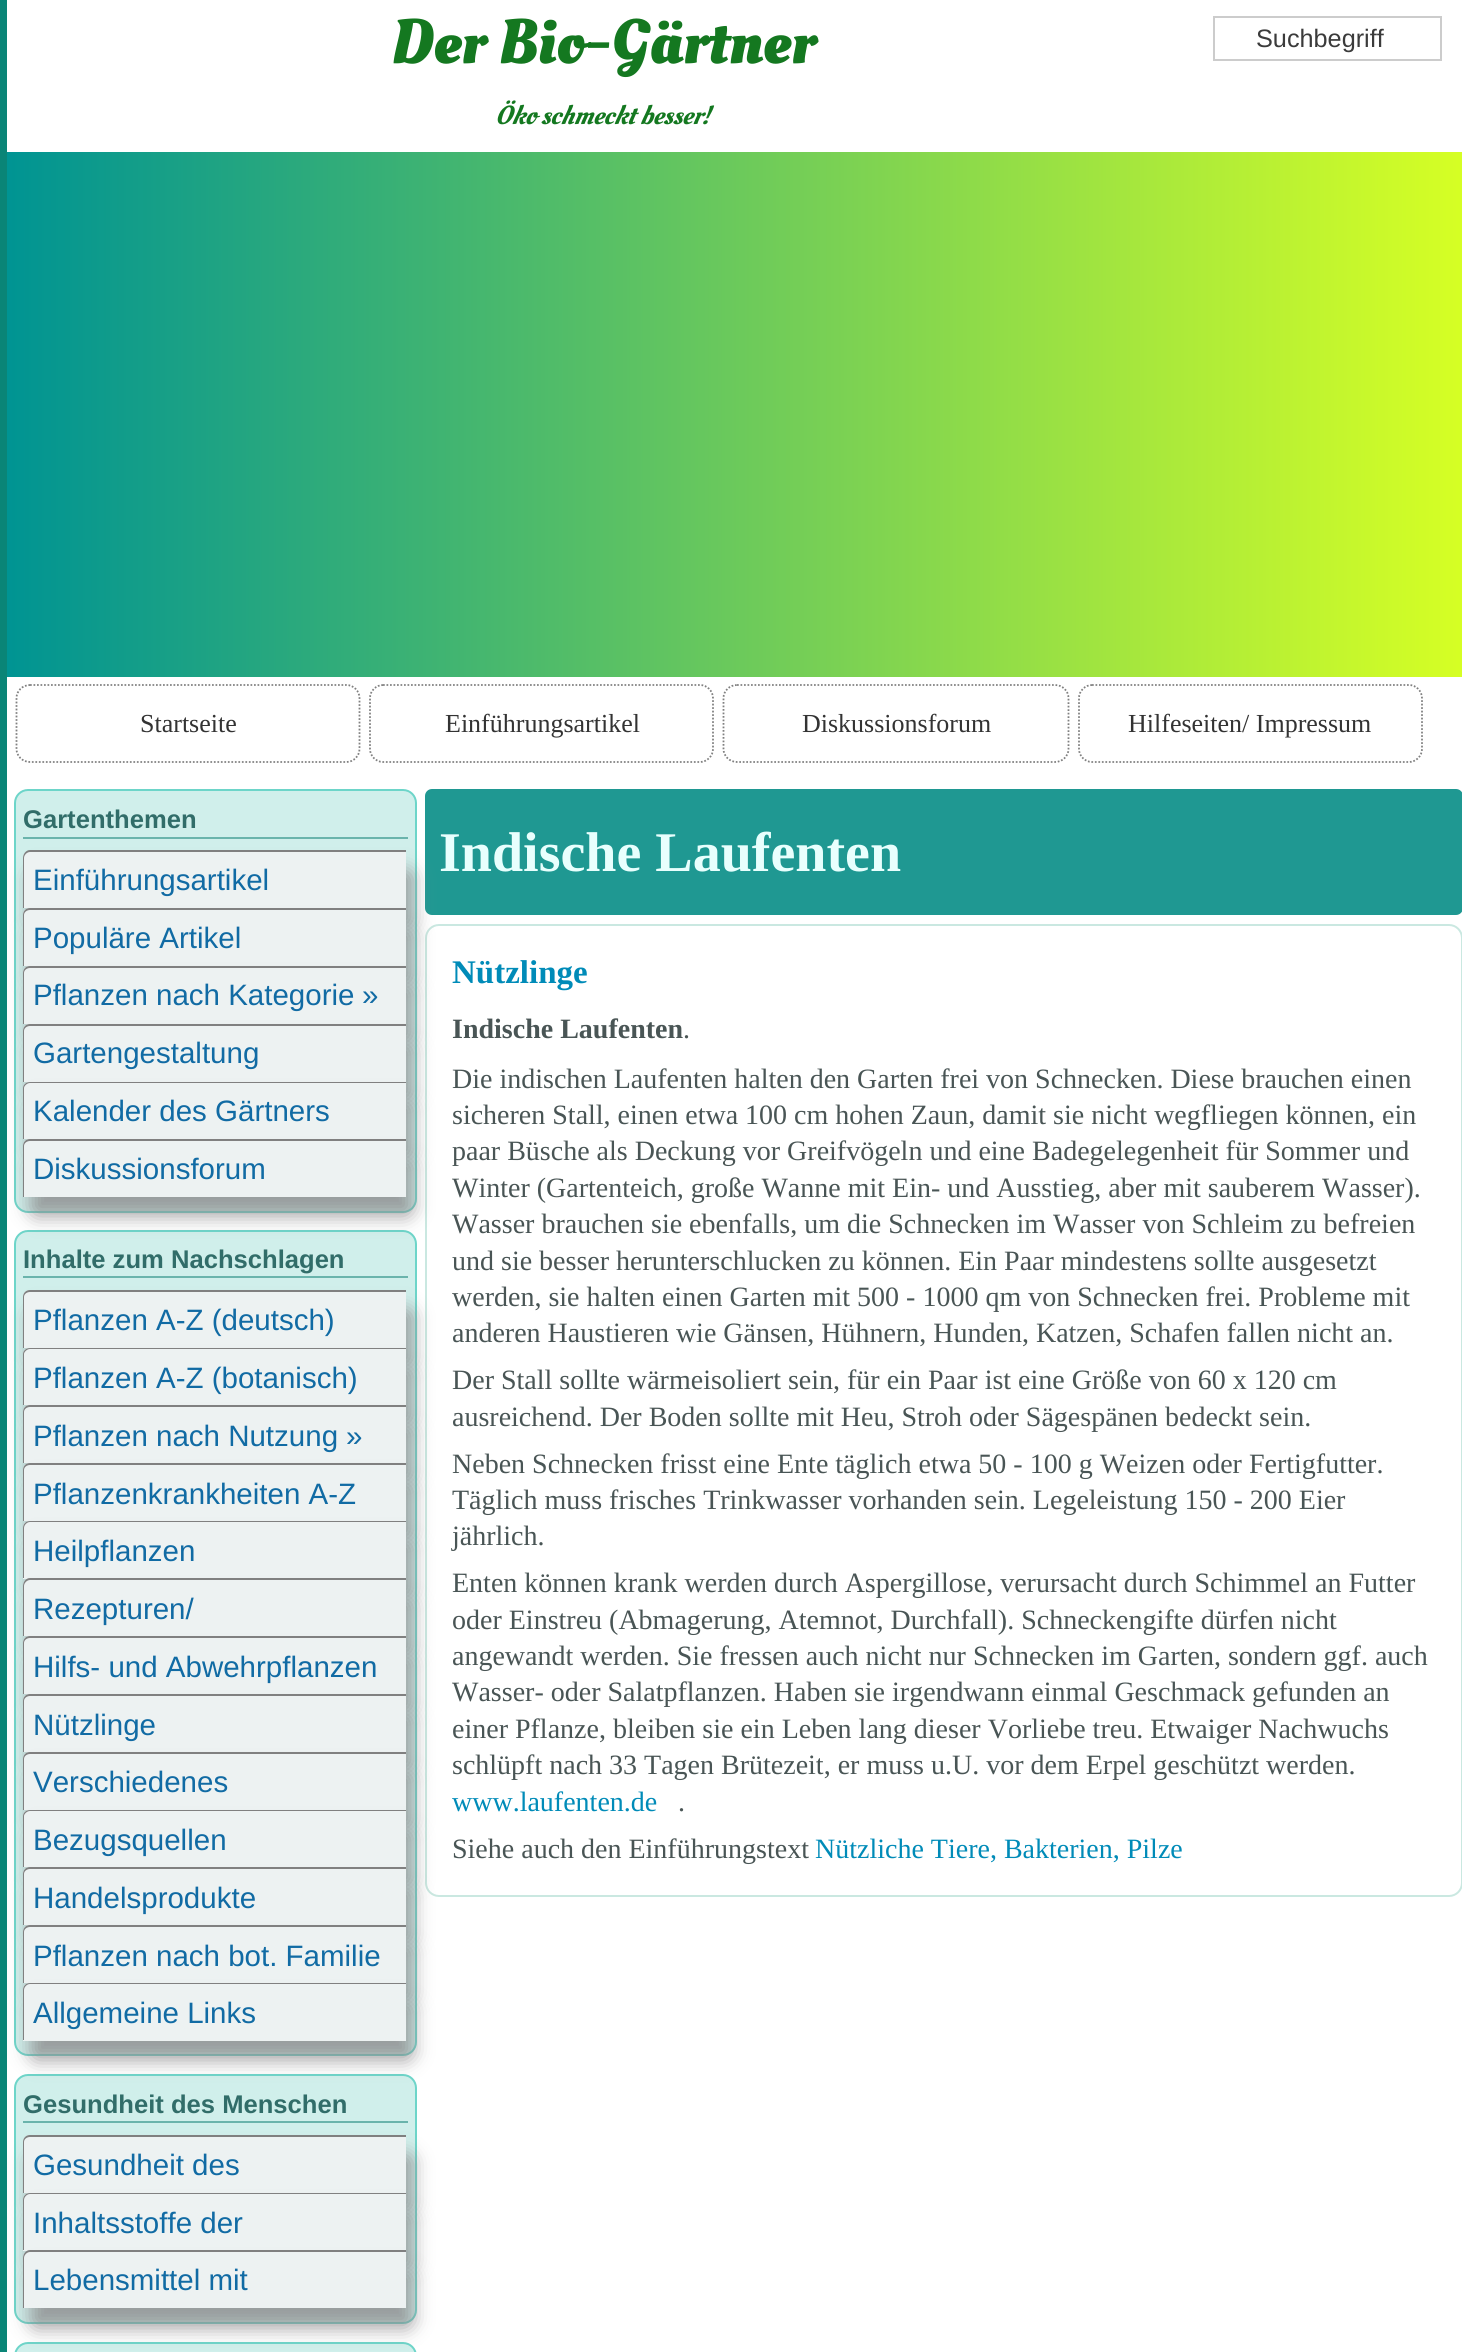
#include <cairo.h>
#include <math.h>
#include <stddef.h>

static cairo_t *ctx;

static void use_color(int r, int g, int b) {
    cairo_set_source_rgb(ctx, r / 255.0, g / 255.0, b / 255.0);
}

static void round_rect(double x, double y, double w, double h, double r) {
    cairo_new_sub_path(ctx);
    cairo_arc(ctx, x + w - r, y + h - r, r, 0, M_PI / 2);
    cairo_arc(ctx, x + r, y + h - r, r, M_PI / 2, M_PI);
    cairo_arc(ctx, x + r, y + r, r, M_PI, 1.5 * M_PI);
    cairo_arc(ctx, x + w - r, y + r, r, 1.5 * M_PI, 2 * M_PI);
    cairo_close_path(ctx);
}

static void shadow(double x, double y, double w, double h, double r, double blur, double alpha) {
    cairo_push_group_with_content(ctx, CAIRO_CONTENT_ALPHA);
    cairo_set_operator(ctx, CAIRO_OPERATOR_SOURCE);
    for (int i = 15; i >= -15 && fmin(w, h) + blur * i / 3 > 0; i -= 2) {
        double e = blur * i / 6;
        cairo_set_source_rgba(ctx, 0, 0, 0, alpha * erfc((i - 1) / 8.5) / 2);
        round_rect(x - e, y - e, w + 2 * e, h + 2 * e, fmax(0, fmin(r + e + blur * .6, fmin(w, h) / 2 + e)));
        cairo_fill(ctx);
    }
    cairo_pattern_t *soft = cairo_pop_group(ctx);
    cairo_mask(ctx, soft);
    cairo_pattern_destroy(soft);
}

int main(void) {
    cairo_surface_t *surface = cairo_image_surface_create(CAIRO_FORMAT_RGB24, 1462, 2352);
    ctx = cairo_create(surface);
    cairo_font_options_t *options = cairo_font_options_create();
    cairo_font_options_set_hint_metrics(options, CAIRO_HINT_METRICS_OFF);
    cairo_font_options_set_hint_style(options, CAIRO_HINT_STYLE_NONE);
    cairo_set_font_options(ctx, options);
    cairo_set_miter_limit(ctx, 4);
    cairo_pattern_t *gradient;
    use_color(10, 133, 119);
    cairo_paint(ctx);
    use_color(255, 255, 255);
    cairo_rectangle(ctx, 7, 677, 1455, 1675);
    cairo_fill(ctx);
    gradient = cairo_pattern_create_linear(7, 339, 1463, 339);
    cairo_pattern_add_color_stop_rgba(gradient, 0, 0, 0.58, 0.576, 1);
    cairo_pattern_add_color_stop_rgba(gradient, 1, 0.839, 1, 0.141, 1);
    cairo_set_source(ctx, gradient);
    cairo_pattern_destroy(gradient);
    cairo_rectangle(ctx, 7, 152, 1455, 525);
    cairo_fill(ctx);
    use_color(255, 255, 255);
    cairo_rectangle(ctx, 7, 0, 1455, 152);
    cairo_fill(ctx);
    cairo_select_font_face(ctx, "Oleo Script", CAIRO_FONT_SLANT_NORMAL, CAIRO_FONT_WEIGHT_BOLD);
    cairo_set_font_size(ctx, 62.75);
    use_color(20, 120, 32);
    cairo_move_to(ctx, 391, 63);
    cairo_show_text(ctx, "Der Bio-Gärtner");
    cairo_select_font_face(ctx, "Oleo Script", CAIRO_FONT_SLANT_ITALIC, CAIRO_FONT_WEIGHT_NORMAL);
    cairo_set_font_size(ctx, 26.25);
    cairo_move_to(ctx, 495, 124);
    cairo_show_text(ctx, "Öko schmeckt besser!");
    cairo_rectangle(ctx, 1214, 17, 227, 43);
    use_color(204, 204, 204);
    cairo_stroke(ctx);
    cairo_select_font_face(ctx, "Liberation Sans", CAIRO_FONT_SLANT_NORMAL, CAIRO_FONT_WEIGHT_NORMAL);
    cairo_set_font_size(ctx, 25.25);
    use_color(59, 59, 59);
    cairo_move_to(ctx, 1256, 47);
    cairo_show_text(ctx, "Suchbegriff");
    cairo_new_path(ctx);
    cairo_move_to(ctx, 30, 685);
    cairo_line_to(ctx, 346.5, 685);
    cairo_curve_to(ctx, 353.5, 685, 359.5, 691, 359.5, 698);
    cairo_line_to(ctx, 359.5, 749);
    cairo_curve_to(ctx, 359.5, 756, 353.5, 762, 346.5, 762);
    cairo_line_to(ctx, 30, 762);
    cairo_curve_to(ctx, 22.5, 762, 16.5, 756, 16.5, 749);
    cairo_line_to(ctx, 16.5, 698);
    cairo_curve_to(ctx, 16.5, 691, 22.5, 685, 30, 685);
    cairo_close_path(ctx);
    use_color(128, 128, 128);
    cairo_set_line_width(ctx, 1.8);
    cairo_set_dash(ctx, (double[]){1.75, 1.75}, 2, 0);
    cairo_stroke(ctx);
    cairo_select_font_face(ctx, "Liberation Serif", CAIRO_FONT_SLANT_NORMAL, CAIRO_FONT_WEIGHT_NORMAL);
    cairo_set_font_size(ctx, 26);
    use_color(51, 51, 51);
    cairo_move_to(ctx, 140, 732);
    cairo_show_text(ctx, "Startseite");
    cairo_new_path(ctx);
    cairo_move_to(ctx, 383, 685);
    cairo_line_to(ctx, 700, 685);
    cairo_curve_to(ctx, 707, 685, 713, 691, 713, 698);
    cairo_line_to(ctx, 713, 749);
    cairo_curve_to(ctx, 713, 756, 707, 762, 700, 762);
    cairo_line_to(ctx, 383, 762);
    cairo_curve_to(ctx, 376, 762, 370, 756, 370, 749);
    cairo_line_to(ctx, 370, 698);
    cairo_curve_to(ctx, 370, 691, 376, 685, 383, 685);
    cairo_close_path(ctx);
    use_color(128, 128, 128);
    cairo_stroke(ctx);
    use_color(51, 51, 51);
    cairo_move_to(ctx, 445, 732);
    cairo_show_text(ctx, "Einführungsartikel");
    cairo_new_path(ctx);
    cairo_move_to(ctx, 737, 685);
    cairo_line_to(ctx, 1055, 685);
    cairo_curve_to(ctx, 1062.5, 685, 1068.5, 691, 1068.5, 698);
    cairo_line_to(ctx, 1068.5, 749);
    cairo_curve_to(ctx, 1068.5, 756, 1062.5, 762, 1055, 762);
    cairo_line_to(ctx, 737, 762);
    cairo_curve_to(ctx, 729.5, 762, 723.5, 756, 723.5, 749);
    cairo_line_to(ctx, 723.5, 698);
    cairo_curve_to(ctx, 723.5, 691, 729.5, 685, 737, 685);
    cairo_close_path(ctx);
    use_color(128, 128, 128);
    cairo_stroke(ctx);
    use_color(51, 51, 51);
    cairo_move_to(ctx, 802, 732);
    cairo_show_text(ctx, "Diskussionsforum");
    cairo_new_path(ctx);
    cairo_move_to(ctx, 1092, 685);
    cairo_line_to(ctx, 1409, 685);
    cairo_curve_to(ctx, 1416, 685, 1422, 691, 1422, 698);
    cairo_line_to(ctx, 1422, 749);
    cairo_curve_to(ctx, 1422, 756, 1416, 762, 1409, 762);
    cairo_line_to(ctx, 1092, 762);
    cairo_curve_to(ctx, 1085, 762, 1079, 756, 1079, 749);
    cairo_line_to(ctx, 1079, 698);
    cairo_curve_to(ctx, 1079, 691, 1085, 685, 1092, 685);
    cairo_close_path(ctx);
    use_color(128, 128, 128);
    cairo_stroke(ctx);
    use_color(51, 51, 51);
    cairo_move_to(ctx, 1128, 732);
    cairo_show_text(ctx, "Hilfeseiten/ Impressum");
    use_color(208, 239, 235);
    round_rect(15, 790, 401, 422, 13);
    cairo_fill_preserve(ctx);
    use_color(109, 213, 201);
    cairo_set_line_width(ctx, 2);
    cairo_set_dash(ctx, NULL, 0, 0);
    cairo_stroke(ctx);
    use_color(106, 180, 172);
    cairo_rectangle(ctx, 23, 837, 385, 2);
    cairo_fill(ctx);
    cairo_select_font_face(ctx, "Liberation Sans", CAIRO_FONT_SLANT_NORMAL, CAIRO_FONT_WEIGHT_BOLD);
    cairo_set_font_size(ctx, 25.6);
    use_color(49, 109, 105);
    cairo_move_to(ctx, 23, 828);
    cairo_show_text(ctx, "Gartenthemen");
    use_color(31, 152, 146);
    round_rect(425, 789, 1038, 126, 7);
    cairo_fill(ctx);
    round_rect(426, 925, 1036, 971, 13);
    use_color(202, 232, 225);
    cairo_stroke(ctx);
    use_color(138, 136, 138);
    shadow(30, 870, 383, 58, 7, 9.5, 0.8);
    use_color(237, 242, 242);
    cairo_new_path(ctx);
    cairo_move_to(ctx, 30, 851);
    cairo_line_to(ctx, 406, 851);
    cairo_line_to(ctx, 406, 908);
    cairo_line_to(ctx, 23, 908);
    cairo_line_to(ctx, 23, 858);
    cairo_curve_to(ctx, 23, 854, 26, 851, 30, 851);
    cairo_close_path(ctx);
    cairo_fill(ctx);
    use_color(128, 128, 128);
    cairo_set_fill_rule(ctx, CAIRO_FILL_RULE_EVEN_ODD);
    cairo_new_path(ctx);
    cairo_move_to(ctx, 30, 850);
    cairo_line_to(ctx, 406, 850);
    cairo_line_to(ctx, 406, 908);
    cairo_line_to(ctx, 23, 908);
    cairo_line_to(ctx, 23, 858);
    cairo_curve_to(ctx, 23, 854, 26, 850, 30, 850);
    cairo_close_path(ctx);
    cairo_move_to(ctx, 30, 852);
    cairo_line_to(ctx, 406, 852);
    cairo_line_to(ctx, 406, 908);
    cairo_line_to(ctx, 24, 908);
    cairo_line_to(ctx, 24, 858);
    cairo_curve_to(ctx, 24, 855, 27, 852, 30, 852);
    cairo_close_path(ctx);
    cairo_fill(ctx);
    cairo_select_font_face(ctx, "Liberation Sans", CAIRO_FONT_SLANT_NORMAL, CAIRO_FONT_WEIGHT_NORMAL);
    cairo_set_font_size(ctx, 29.5);
    use_color(17, 107, 164);
    cairo_move_to(ctx, 33, 890);
    cairo_show_text(ctx, "Einführungsartikel");
    use_color(138, 136, 138);
    shadow(30, 928, 383, 57, 7, 9.5, 0.8);
    use_color(237, 242, 242);
    cairo_new_path(ctx);
    cairo_move_to(ctx, 30, 908);
    cairo_line_to(ctx, 406, 908);
    cairo_line_to(ctx, 406, 966);
    cairo_line_to(ctx, 23, 966);
    cairo_line_to(ctx, 23, 915);
    cairo_curve_to(ctx, 23, 911, 26, 908, 30, 908);
    cairo_close_path(ctx);
    cairo_fill(ctx);
    use_color(128, 128, 128);
    cairo_new_path(ctx);
    cairo_move_to(ctx, 30, 908);
    cairo_line_to(ctx, 406, 908);
    cairo_line_to(ctx, 406, 966);
    cairo_line_to(ctx, 23, 966);
    cairo_line_to(ctx, 23, 915);
    cairo_curve_to(ctx, 23, 911, 26, 908, 30, 908);
    cairo_close_path(ctx);
    cairo_move_to(ctx, 30, 910);
    cairo_line_to(ctx, 406, 910);
    cairo_line_to(ctx, 406, 966);
    cairo_line_to(ctx, 24, 966);
    cairo_line_to(ctx, 24, 915);
    cairo_curve_to(ctx, 24, 912, 27, 910, 30, 910);
    cairo_close_path(ctx);
    cairo_fill(ctx);
    use_color(17, 107, 164);
    cairo_move_to(ctx, 33, 948);
    cairo_show_text(ctx, "Populäre Artikel");
    use_color(138, 136, 138);
    shadow(30, 985, 383, 58, 7, 9.5, 0.8);
    use_color(237, 242, 242);
    cairo_new_path(ctx);
    cairo_move_to(ctx, 30, 966);
    cairo_line_to(ctx, 406, 966);
    cairo_line_to(ctx, 406, 1024);
    cairo_line_to(ctx, 23, 1024);
    cairo_line_to(ctx, 23, 973);
    cairo_curve_to(ctx, 23, 969, 26, 966, 30, 966);
    cairo_close_path(ctx);
    cairo_fill(ctx);
    use_color(128, 128, 128);
    cairo_new_path(ctx);
    cairo_move_to(ctx, 30, 966);
    cairo_line_to(ctx, 406, 966);
    cairo_line_to(ctx, 406, 1024);
    cairo_line_to(ctx, 23, 1024);
    cairo_line_to(ctx, 23, 973);
    cairo_curve_to(ctx, 23, 969, 26, 966, 30, 966);
    cairo_close_path(ctx);
    cairo_move_to(ctx, 30, 968);
    cairo_line_to(ctx, 406, 968);
    cairo_line_to(ctx, 406, 1024);
    cairo_line_to(ctx, 24, 1024);
    cairo_line_to(ctx, 24, 973);
    cairo_curve_to(ctx, 24, 970, 27, 968, 30, 968);
    cairo_close_path(ctx);
    cairo_fill(ctx);
    use_color(17, 107, 164);
    cairo_move_to(ctx, 33, 1005);
    cairo_show_text(ctx, "Pflanzen nach Kategorie");
    cairo_move_to(ctx, 362, 1005);
    cairo_show_text(ctx, "»");
    use_color(138, 136, 138);
    shadow(30, 1043, 383, 58, 7, 9.5, 0.8);
    use_color(237, 242, 242);
    cairo_new_path(ctx);
    cairo_move_to(ctx, 30, 1024);
    cairo_line_to(ctx, 406, 1024);
    cairo_line_to(ctx, 406, 1082);
    cairo_line_to(ctx, 23, 1082);
    cairo_line_to(ctx, 23, 1031);
    cairo_curve_to(ctx, 23, 1027, 26, 1024, 30, 1024);
    cairo_close_path(ctx);
    cairo_fill(ctx);
    use_color(128, 128, 128);
    cairo_new_path(ctx);
    cairo_move_to(ctx, 30, 1024);
    cairo_line_to(ctx, 406, 1024);
    cairo_line_to(ctx, 406, 1082);
    cairo_line_to(ctx, 23, 1082);
    cairo_line_to(ctx, 23, 1031);
    cairo_curve_to(ctx, 23, 1027, 26, 1024, 30, 1024);
    cairo_close_path(ctx);
    cairo_move_to(ctx, 30, 1026);
    cairo_line_to(ctx, 406, 1026);
    cairo_line_to(ctx, 406, 1082);
    cairo_line_to(ctx, 24, 1082);
    cairo_line_to(ctx, 24, 1031);
    cairo_curve_to(ctx, 24, 1028, 27, 1026, 30, 1026);
    cairo_close_path(ctx);
    cairo_fill(ctx);
    use_color(17, 107, 164);
    cairo_move_to(ctx, 33, 1063);
    cairo_show_text(ctx, "Gartengestaltung");
    use_color(138, 136, 138);
    shadow(30, 1101, 383, 58, 7, 9.5, 0.8);
    use_color(237, 242, 242);
    cairo_new_path(ctx);
    cairo_move_to(ctx, 30, 1082);
    cairo_line_to(ctx, 406, 1082);
    cairo_line_to(ctx, 406, 1139);
    cairo_line_to(ctx, 23, 1139);
    cairo_line_to(ctx, 23, 1089);
    cairo_curve_to(ctx, 23, 1085, 26, 1082, 30, 1082);
    cairo_close_path(ctx);
    cairo_fill(ctx);
    use_color(128, 128, 128);
    cairo_new_path(ctx);
    cairo_move_to(ctx, 30, 1082);
    cairo_line_to(ctx, 406, 1082);
    cairo_line_to(ctx, 406, 1139);
    cairo_line_to(ctx, 23, 1139);
    cairo_line_to(ctx, 23, 1088);
    cairo_curve_to(ctx, 23, 1085, 26, 1082, 30, 1082);
    cairo_close_path(ctx);
    cairo_move_to(ctx, 30, 1083);
    cairo_line_to(ctx, 406, 1083);
    cairo_line_to(ctx, 406, 1139);
    cairo_line_to(ctx, 24, 1139);
    cairo_line_to(ctx, 24, 1088);
    cairo_curve_to(ctx, 24, 1086, 27, 1083, 30, 1083);
    cairo_close_path(ctx);
    cairo_fill(ctx);
    use_color(17, 107, 164);
    cairo_move_to(ctx, 33, 1121);
    cairo_show_text(ctx, "Kalender des Gärtners");
    use_color(208, 239, 235);
    round_rect(15, 1231, 401, 824, 13);
    cairo_fill_preserve(ctx);
    use_color(109, 213, 201);
    cairo_stroke(ctx);
    use_color(138, 136, 138);
    shadow(30, 1159, 383, 57, 7, 9.5, 0.8);
    use_color(237, 242, 242);
    cairo_new_path(ctx);
    cairo_move_to(ctx, 30, 1139);
    cairo_line_to(ctx, 406, 1139);
    cairo_line_to(ctx, 406, 1197);
    cairo_line_to(ctx, 23, 1197);
    cairo_line_to(ctx, 23, 1146);
    cairo_curve_to(ctx, 23, 1142, 26, 1139, 30, 1139);
    cairo_close_path(ctx);
    cairo_fill(ctx);
    use_color(128, 128, 128);
    cairo_new_path(ctx);
    cairo_move_to(ctx, 30, 1139);
    cairo_line_to(ctx, 406, 1139);
    cairo_line_to(ctx, 406, 1197);
    cairo_line_to(ctx, 23, 1197);
    cairo_line_to(ctx, 23, 1146);
    cairo_curve_to(ctx, 23, 1142, 26, 1139, 30, 1139);
    cairo_close_path(ctx);
    cairo_move_to(ctx, 30, 1141);
    cairo_line_to(ctx, 406, 1141);
    cairo_line_to(ctx, 406, 1197);
    cairo_line_to(ctx, 24, 1197);
    cairo_line_to(ctx, 24, 1146);
    cairo_curve_to(ctx, 24, 1143, 27, 1141, 30, 1141);
    cairo_close_path(ctx);
    cairo_fill(ctx);
    use_color(17, 107, 164);
    cairo_move_to(ctx, 33, 1179);
    cairo_show_text(ctx, "Diskussionsforum");
    use_color(106, 180, 172);
    cairo_rectangle(ctx, 23, 1276, 385, 2);
    cairo_fill(ctx);
    cairo_select_font_face(ctx, "Liberation Sans", CAIRO_FONT_SLANT_NORMAL, CAIRO_FONT_WEIGHT_BOLD);
    cairo_set_font_size(ctx, 25.6);
    use_color(49, 109, 105);
    cairo_move_to(ctx, 23, 1268);
    cairo_show_text(ctx, "Inhalte zum Nachschlagen");
    use_color(138, 136, 138);
    shadow(30, 1309, 383, 58, 7, 9.5, 0.8);
    use_color(237, 242, 242);
    cairo_new_path(ctx);
    cairo_move_to(ctx, 30, 1290);
    cairo_line_to(ctx, 406, 1290);
    cairo_line_to(ctx, 406, 1348);
    cairo_line_to(ctx, 23, 1348);
    cairo_line_to(ctx, 23, 1297);
    cairo_curve_to(ctx, 23, 1293, 26, 1290, 30, 1290);
    cairo_close_path(ctx);
    cairo_fill(ctx);
    use_color(128, 128, 128);
    cairo_new_path(ctx);
    cairo_move_to(ctx, 30, 1290);
    cairo_line_to(ctx, 406, 1290);
    cairo_line_to(ctx, 406, 1348);
    cairo_line_to(ctx, 23, 1348);
    cairo_line_to(ctx, 23, 1297);
    cairo_curve_to(ctx, 23, 1293, 26, 1290, 30, 1290);
    cairo_close_path(ctx);
    cairo_move_to(ctx, 30, 1292);
    cairo_line_to(ctx, 406, 1292);
    cairo_line_to(ctx, 406, 1348);
    cairo_line_to(ctx, 24, 1348);
    cairo_line_to(ctx, 24, 1297);
    cairo_curve_to(ctx, 24, 1294, 27, 1292, 30, 1292);
    cairo_close_path(ctx);
    cairo_fill(ctx);
    cairo_select_font_face(ctx, "Liberation Sans", CAIRO_FONT_SLANT_NORMAL, CAIRO_FONT_WEIGHT_NORMAL);
    cairo_set_font_size(ctx, 29.5);
    use_color(17, 107, 164);
    cairo_move_to(ctx, 33, 1330);
    cairo_show_text(ctx, "Pflanzen A-Z (deutsch)");
    use_color(138, 136, 138);
    shadow(30, 1367, 383, 58, 7, 9.5, 0.8);
    use_color(237, 242, 242);
    cairo_new_path(ctx);
    cairo_move_to(ctx, 30, 1348);
    cairo_line_to(ctx, 406, 1348);
    cairo_line_to(ctx, 406, 1405);
    cairo_line_to(ctx, 23, 1405);
    cairo_line_to(ctx, 23, 1355);
    cairo_curve_to(ctx, 23, 1351, 26, 1348, 30, 1348);
    cairo_close_path(ctx);
    cairo_fill(ctx);
    use_color(128, 128, 128);
    cairo_new_path(ctx);
    cairo_move_to(ctx, 30, 1348);
    cairo_line_to(ctx, 406, 1348);
    cairo_line_to(ctx, 406, 1405);
    cairo_line_to(ctx, 23, 1405);
    cairo_line_to(ctx, 23, 1354);
    cairo_curve_to(ctx, 23, 1351, 26, 1348, 30, 1348);
    cairo_close_path(ctx);
    cairo_move_to(ctx, 30, 1349);
    cairo_line_to(ctx, 406, 1349);
    cairo_line_to(ctx, 406, 1405);
    cairo_line_to(ctx, 24, 1405);
    cairo_line_to(ctx, 24, 1354);
    cairo_curve_to(ctx, 24, 1352, 27, 1349, 30, 1349);
    cairo_close_path(ctx);
    cairo_fill(ctx);
    use_color(17, 107, 164);
    cairo_move_to(ctx, 33, 1388);
    cairo_show_text(ctx, "Pflanzen A-Z (botanisch)");
    use_color(138, 136, 138);
    shadow(30, 1425, 383, 57, 7, 9.5, 0.8);
    use_color(237, 242, 242);
    cairo_new_path(ctx);
    cairo_move_to(ctx, 30, 1405);
    cairo_line_to(ctx, 406, 1405);
    cairo_line_to(ctx, 406, 1463);
    cairo_line_to(ctx, 23, 1463);
    cairo_line_to(ctx, 23, 1412);
    cairo_curve_to(ctx, 23, 1408, 26, 1405, 30, 1405);
    cairo_close_path(ctx);
    cairo_fill(ctx);
    use_color(128, 128, 128);
    cairo_new_path(ctx);
    cairo_move_to(ctx, 30, 1405);
    cairo_line_to(ctx, 406, 1405);
    cairo_line_to(ctx, 406, 1463);
    cairo_line_to(ctx, 23, 1463);
    cairo_line_to(ctx, 23, 1412);
    cairo_curve_to(ctx, 23, 1408, 26, 1405, 30, 1405);
    cairo_close_path(ctx);
    cairo_move_to(ctx, 30, 1407);
    cairo_line_to(ctx, 406, 1407);
    cairo_line_to(ctx, 406, 1463);
    cairo_line_to(ctx, 24, 1463);
    cairo_line_to(ctx, 24, 1412);
    cairo_curve_to(ctx, 24, 1409, 27, 1407, 30, 1407);
    cairo_close_path(ctx);
    cairo_fill(ctx);
    use_color(17, 107, 164);
    cairo_move_to(ctx, 33, 1446);
    cairo_show_text(ctx, "Pflanzen nach Nutzung");
    cairo_move_to(ctx, 346, 1446);
    cairo_show_text(ctx, "»");
    use_color(138, 136, 138);
    shadow(30, 1482, 383, 58, 7, 9.5, 0.8);
    use_color(237, 242, 242);
    cairo_new_path(ctx);
    cairo_move_to(ctx, 30, 1463);
    cairo_line_to(ctx, 406, 1463);
    cairo_line_to(ctx, 406, 1521);
    cairo_line_to(ctx, 23, 1521);
    cairo_line_to(ctx, 23, 1470);
    cairo_curve_to(ctx, 23, 1466, 26, 1463, 30, 1463);
    cairo_close_path(ctx);
    cairo_fill(ctx);
    use_color(128, 128, 128);
    cairo_new_path(ctx);
    cairo_move_to(ctx, 30, 1463);
    cairo_line_to(ctx, 406, 1463);
    cairo_line_to(ctx, 406, 1521);
    cairo_line_to(ctx, 23, 1521);
    cairo_line_to(ctx, 23, 1470);
    cairo_curve_to(ctx, 23, 1466, 26, 1463, 30, 1463);
    cairo_close_path(ctx);
    cairo_move_to(ctx, 30, 1465);
    cairo_line_to(ctx, 406, 1465);
    cairo_line_to(ctx, 406, 1521);
    cairo_line_to(ctx, 24, 1521);
    cairo_line_to(ctx, 24, 1470);
    cairo_curve_to(ctx, 24, 1467, 27, 1465, 30, 1465);
    cairo_close_path(ctx);
    cairo_fill(ctx);
    use_color(17, 107, 164);
    cairo_move_to(ctx, 33, 1504);
    cairo_show_text(ctx, "Pflanzenkrankheiten A-Z");
    use_color(138, 136, 138);
    shadow(30, 1540, 383, 58, 7, 9.5, 0.8);
    use_color(237, 242, 242);
    cairo_new_path(ctx);
    cairo_move_to(ctx, 30, 1521);
    cairo_line_to(ctx, 406, 1521);
    cairo_line_to(ctx, 406, 1579);
    cairo_line_to(ctx, 23, 1579);
    cairo_line_to(ctx, 23, 1528);
    cairo_curve_to(ctx, 23, 1524, 26, 1521, 30, 1521);
    cairo_close_path(ctx);
    cairo_fill(ctx);
    use_color(128, 128, 128);
    cairo_new_path(ctx);
    cairo_move_to(ctx, 30, 1521);
    cairo_line_to(ctx, 406, 1521);
    cairo_line_to(ctx, 406, 1578);
    cairo_line_to(ctx, 23, 1578);
    cairo_line_to(ctx, 23, 1528);
    cairo_curve_to(ctx, 23, 1524, 26, 1521, 30, 1521);
    cairo_close_path(ctx);
    cairo_move_to(ctx, 30, 1522);
    cairo_line_to(ctx, 406, 1522);
    cairo_line_to(ctx, 406, 1578);
    cairo_line_to(ctx, 24, 1578);
    cairo_line_to(ctx, 24, 1528);
    cairo_curve_to(ctx, 24, 1525, 27, 1522, 30, 1522);
    cairo_close_path(ctx);
    cairo_fill(ctx);
    use_color(17, 107, 164);
    cairo_move_to(ctx, 33, 1561);
    cairo_show_text(ctx, "Heilpflanzen");
    use_color(138, 136, 138);
    shadow(30, 1598, 383, 58, 7, 9.5, 0.8);
    use_color(237, 242, 242);
    cairo_new_path(ctx);
    cairo_move_to(ctx, 30, 1579);
    cairo_line_to(ctx, 406, 1579);
    cairo_line_to(ctx, 406, 1636);
    cairo_line_to(ctx, 23, 1636);
    cairo_line_to(ctx, 23, 1586);
    cairo_curve_to(ctx, 23, 1582, 26, 1579, 30, 1579);
    cairo_close_path(ctx);
    cairo_fill(ctx);
    use_color(128, 128, 128);
    cairo_new_path(ctx);
    cairo_move_to(ctx, 30, 1578);
    cairo_line_to(ctx, 406, 1578);
    cairo_line_to(ctx, 406, 1636);
    cairo_line_to(ctx, 23, 1636);
    cairo_line_to(ctx, 23, 1586);
    cairo_curve_to(ctx, 23, 1582, 26, 1578, 30, 1578);
    cairo_close_path(ctx);
    cairo_move_to(ctx, 30, 1580);
    cairo_line_to(ctx, 406, 1580);
    cairo_line_to(ctx, 406, 1636);
    cairo_line_to(ctx, 24, 1636);
    cairo_line_to(ctx, 24, 1586);
    cairo_curve_to(ctx, 24, 1583, 27, 1580, 30, 1580);
    cairo_close_path(ctx);
    cairo_fill(ctx);
    use_color(17, 107, 164);
    cairo_move_to(ctx, 33, 1619);
    cairo_show_text(ctx, "Rezepturen/");
    use_color(138, 136, 138);
    shadow(30, 1656, 383, 57, 7, 9.5, 0.8);
    use_color(237, 242, 242);
    cairo_new_path(ctx);
    cairo_move_to(ctx, 30, 1636);
    cairo_line_to(ctx, 406, 1636);
    cairo_line_to(ctx, 406, 1694);
    cairo_line_to(ctx, 23, 1694);
    cairo_line_to(ctx, 23, 1643);
    cairo_curve_to(ctx, 23, 1639, 26, 1636, 30, 1636);
    cairo_close_path(ctx);
    cairo_fill(ctx);
    use_color(128, 128, 128);
    cairo_new_path(ctx);
    cairo_move_to(ctx, 30, 1636);
    cairo_line_to(ctx, 406, 1636);
    cairo_line_to(ctx, 406, 1694);
    cairo_line_to(ctx, 23, 1694);
    cairo_line_to(ctx, 23, 1643);
    cairo_curve_to(ctx, 23, 1639, 26, 1636, 30, 1636);
    cairo_close_path(ctx);
    cairo_move_to(ctx, 30, 1638);
    cairo_line_to(ctx, 406, 1638);
    cairo_line_to(ctx, 406, 1694);
    cairo_line_to(ctx, 24, 1694);
    cairo_line_to(ctx, 24, 1643);
    cairo_curve_to(ctx, 24, 1640, 27, 1638, 30, 1638);
    cairo_close_path(ctx);
    cairo_fill(ctx);
    use_color(17, 107, 164);
    cairo_move_to(ctx, 33, 1677);
    cairo_show_text(ctx, "Hilfs- und Abwehrpflanzen");
    use_color(138, 136, 138);
    shadow(30, 1713, 383, 58, 7, 9.5, 0.8);
    use_color(237, 242, 242);
    cairo_new_path(ctx);
    cairo_move_to(ctx, 30, 1694);
    cairo_line_to(ctx, 406, 1694);
    cairo_line_to(ctx, 406, 1752);
    cairo_line_to(ctx, 23, 1752);
    cairo_line_to(ctx, 23, 1701);
    cairo_curve_to(ctx, 23, 1697, 26, 1694, 30, 1694);
    cairo_close_path(ctx);
    cairo_fill(ctx);
    use_color(128, 128, 128);
    cairo_new_path(ctx);
    cairo_move_to(ctx, 30, 1694);
    cairo_line_to(ctx, 406, 1694);
    cairo_line_to(ctx, 406, 1752);
    cairo_line_to(ctx, 23, 1752);
    cairo_line_to(ctx, 23, 1701);
    cairo_curve_to(ctx, 23, 1697, 26, 1694, 30, 1694);
    cairo_close_path(ctx);
    cairo_move_to(ctx, 30, 1696);
    cairo_line_to(ctx, 406, 1696);
    cairo_line_to(ctx, 406, 1752);
    cairo_line_to(ctx, 24, 1752);
    cairo_line_to(ctx, 24, 1701);
    cairo_curve_to(ctx, 24, 1698, 27, 1696, 30, 1696);
    cairo_close_path(ctx);
    cairo_fill(ctx);
    use_color(17, 107, 164);
    cairo_move_to(ctx, 33, 1735);
    cairo_show_text(ctx, "Nützlinge");
    use_color(138, 136, 138);
    shadow(30, 1771, 383, 58, 7, 9.5, 0.8);
    use_color(237, 242, 242);
    cairo_new_path(ctx);
    cairo_move_to(ctx, 30, 1752);
    cairo_line_to(ctx, 406, 1752);
    cairo_line_to(ctx, 406, 1810);
    cairo_line_to(ctx, 23, 1810);
    cairo_line_to(ctx, 23, 1759);
    cairo_curve_to(ctx, 23, 1755, 26, 1752, 30, 1752);
    cairo_close_path(ctx);
    cairo_fill(ctx);
    use_color(128, 128, 128);
    cairo_new_path(ctx);
    cairo_move_to(ctx, 30, 1752);
    cairo_line_to(ctx, 406, 1752);
    cairo_line_to(ctx, 406, 1810);
    cairo_line_to(ctx, 23, 1810);
    cairo_line_to(ctx, 23, 1759);
    cairo_curve_to(ctx, 23, 1755, 26, 1752, 30, 1752);
    cairo_close_path(ctx);
    cairo_move_to(ctx, 30, 1754);
    cairo_line_to(ctx, 406, 1754);
    cairo_line_to(ctx, 406, 1810);
    cairo_line_to(ctx, 24, 1810);
    cairo_line_to(ctx, 24, 1759);
    cairo_curve_to(ctx, 24, 1756, 27, 1754, 30, 1754);
    cairo_close_path(ctx);
    cairo_fill(ctx);
    use_color(17, 107, 164);
    cairo_move_to(ctx, 33, 1792);
    cairo_show_text(ctx, "Verschiedenes");
    use_color(138, 136, 138);
    shadow(30, 1829, 383, 58, 7, 9.5, 0.8);
    use_color(237, 242, 242);
    cairo_new_path(ctx);
    cairo_move_to(ctx, 30, 1810);
    cairo_line_to(ctx, 406, 1810);
    cairo_line_to(ctx, 406, 1867);
    cairo_line_to(ctx, 23, 1867);
    cairo_line_to(ctx, 23, 1817);
    cairo_curve_to(ctx, 23, 1813, 26, 1810, 30, 1810);
    cairo_close_path(ctx);
    cairo_fill(ctx);
    use_color(128, 128, 128);
    cairo_new_path(ctx);
    cairo_move_to(ctx, 30, 1810);
    cairo_line_to(ctx, 406, 1810);
    cairo_line_to(ctx, 406, 1867);
    cairo_line_to(ctx, 23, 1867);
    cairo_line_to(ctx, 23, 1816);
    cairo_curve_to(ctx, 23, 1813, 26, 1810, 30, 1810);
    cairo_close_path(ctx);
    cairo_move_to(ctx, 30, 1811);
    cairo_line_to(ctx, 406, 1811);
    cairo_line_to(ctx, 406, 1867);
    cairo_line_to(ctx, 24, 1867);
    cairo_line_to(ctx, 24, 1816);
    cairo_curve_to(ctx, 24, 1814, 27, 1811, 30, 1811);
    cairo_close_path(ctx);
    cairo_fill(ctx);
    use_color(17, 107, 164);
    cairo_move_to(ctx, 33, 1850);
    cairo_show_text(ctx, "Bezugsquellen");
    use_color(138, 136, 138);
    shadow(30, 1887, 383, 57, 7, 9.5, 0.8);
    use_color(237, 242, 242);
    cairo_new_path(ctx);
    cairo_move_to(ctx, 30, 1867);
    cairo_line_to(ctx, 406, 1867);
    cairo_line_to(ctx, 406, 1925);
    cairo_line_to(ctx, 23, 1925);
    cairo_line_to(ctx, 23, 1874);
    cairo_curve_to(ctx, 23, 1870, 26, 1867, 30, 1867);
    cairo_close_path(ctx);
    cairo_fill(ctx);
    use_color(128, 128, 128);
    cairo_new_path(ctx);
    cairo_move_to(ctx, 30, 1867);
    cairo_line_to(ctx, 406, 1867);
    cairo_line_to(ctx, 406, 1925);
    cairo_line_to(ctx, 23, 1925);
    cairo_line_to(ctx, 23, 1874);
    cairo_curve_to(ctx, 23, 1870, 26, 1867, 30, 1867);
    cairo_close_path(ctx);
    cairo_move_to(ctx, 30, 1869);
    cairo_line_to(ctx, 406, 1869);
    cairo_line_to(ctx, 406, 1925);
    cairo_line_to(ctx, 24, 1925);
    cairo_line_to(ctx, 24, 1874);
    cairo_curve_to(ctx, 24, 1871, 27, 1869, 30, 1869);
    cairo_close_path(ctx);
    cairo_fill(ctx);
    use_color(17, 107, 164);
    cairo_move_to(ctx, 33, 1908);
    cairo_show_text(ctx, "Handelsprodukte");
    use_color(138, 136, 138);
    shadow(30, 1944, 383, 58, 7, 9.5, 0.8);
    use_color(237, 242, 242);
    cairo_new_path(ctx);
    cairo_move_to(ctx, 30, 1925);
    cairo_line_to(ctx, 406, 1925);
    cairo_line_to(ctx, 406, 1983);
    cairo_line_to(ctx, 23, 1983);
    cairo_line_to(ctx, 23, 1932);
    cairo_curve_to(ctx, 23, 1928, 26, 1925, 30, 1925);
    cairo_close_path(ctx);
    cairo_fill(ctx);
    use_color(128, 128, 128);
    cairo_new_path(ctx);
    cairo_move_to(ctx, 30, 1925);
    cairo_line_to(ctx, 406, 1925);
    cairo_line_to(ctx, 406, 1983);
    cairo_line_to(ctx, 23, 1983);
    cairo_line_to(ctx, 23, 1932);
    cairo_curve_to(ctx, 23, 1928, 26, 1925, 30, 1925);
    cairo_close_path(ctx);
    cairo_move_to(ctx, 30, 1927);
    cairo_line_to(ctx, 406, 1927);
    cairo_line_to(ctx, 406, 1983);
    cairo_line_to(ctx, 24, 1983);
    cairo_line_to(ctx, 24, 1932);
    cairo_curve_to(ctx, 24, 1929, 27, 1927, 30, 1927);
    cairo_close_path(ctx);
    cairo_fill(ctx);
    use_color(17, 107, 164);
    cairo_move_to(ctx, 33, 1966);
    cairo_show_text(ctx, "Pflanzen nach bot. Familie");
    use_color(208, 239, 235);
    round_rect(15, 2075, 401, 248, 13);
    cairo_fill_preserve(ctx);
    use_color(109, 213, 201);
    cairo_stroke(ctx);
    use_color(138, 136, 138);
    shadow(30, 2002, 383, 58, 7, 9.5, 0.8);
    use_color(237, 242, 242);
    cairo_new_path(ctx);
    cairo_move_to(ctx, 30, 1983);
    cairo_line_to(ctx, 406, 1983);
    cairo_line_to(ctx, 406, 2041);
    cairo_line_to(ctx, 23, 2041);
    cairo_line_to(ctx, 23, 1990);
    cairo_curve_to(ctx, 23, 1986, 26, 1983, 30, 1983);
    cairo_close_path(ctx);
    cairo_fill(ctx);
    use_color(128, 128, 128);
    cairo_new_path(ctx);
    cairo_move_to(ctx, 30, 1983);
    cairo_line_to(ctx, 406, 1983);
    cairo_line_to(ctx, 406, 2040);
    cairo_line_to(ctx, 23, 2040);
    cairo_line_to(ctx, 23, 1990);
    cairo_curve_to(ctx, 23, 1986, 26, 1983, 30, 1983);
    cairo_close_path(ctx);
    cairo_move_to(ctx, 30, 1984);
    cairo_line_to(ctx, 406, 1984);
    cairo_line_to(ctx, 406, 2040);
    cairo_line_to(ctx, 24, 2040);
    cairo_line_to(ctx, 24, 1990);
    cairo_curve_to(ctx, 24, 1987, 27, 1984, 30, 1984);
    cairo_close_path(ctx);
    cairo_fill(ctx);
    use_color(17, 107, 164);
    cairo_move_to(ctx, 33, 2023);
    cairo_show_text(ctx, "Allgemeine Links");
    use_color(106, 180, 172);
    cairo_rectangle(ctx, 23, 2121, 385, 2);
    cairo_fill(ctx);
    cairo_select_font_face(ctx, "Liberation Sans", CAIRO_FONT_SLANT_NORMAL, CAIRO_FONT_WEIGHT_BOLD);
    cairo_set_font_size(ctx, 25.6);
    use_color(49, 109, 105);
    cairo_move_to(ctx, 23, 2113);
    cairo_show_text(ctx, "Gesundheit des Menschen");
    use_color(138, 136, 138);
    shadow(30, 2154, 383, 58, 7, 9.5, 0.8);
    use_color(237, 242, 242);
    cairo_new_path(ctx);
    cairo_move_to(ctx, 30, 2135);
    cairo_line_to(ctx, 406, 2135);
    cairo_line_to(ctx, 406, 2193);
    cairo_line_to(ctx, 23, 2193);
    cairo_line_to(ctx, 23, 2142);
    cairo_curve_to(ctx, 23, 2138, 26, 2135, 30, 2135);
    cairo_close_path(ctx);
    cairo_fill(ctx);
    use_color(128, 128, 128);
    cairo_new_path(ctx);
    cairo_move_to(ctx, 30, 2135);
    cairo_line_to(ctx, 406, 2135);
    cairo_line_to(ctx, 406, 2193);
    cairo_line_to(ctx, 23, 2193);
    cairo_line_to(ctx, 23, 2142);
    cairo_curve_to(ctx, 23, 2138, 26, 2135, 30, 2135);
    cairo_close_path(ctx);
    cairo_move_to(ctx, 30, 2137);
    cairo_line_to(ctx, 406, 2137);
    cairo_line_to(ctx, 406, 2193);
    cairo_line_to(ctx, 24, 2193);
    cairo_line_to(ctx, 24, 2142);
    cairo_curve_to(ctx, 24, 2139, 27, 2137, 30, 2137);
    cairo_close_path(ctx);
    cairo_fill(ctx);
    cairo_select_font_face(ctx, "Liberation Sans", CAIRO_FONT_SLANT_NORMAL, CAIRO_FONT_WEIGHT_NORMAL);
    cairo_set_font_size(ctx, 29.5);
    use_color(17, 107, 164);
    cairo_move_to(ctx, 33, 2175);
    cairo_show_text(ctx, "Gesundheit des");
    use_color(138, 136, 138);
    shadow(30, 2212, 383, 58, 7, 9.5, 0.8);
    use_color(237, 242, 242);
    cairo_new_path(ctx);
    cairo_move_to(ctx, 30, 2193);
    cairo_line_to(ctx, 406, 2193);
    cairo_line_to(ctx, 406, 2251);
    cairo_line_to(ctx, 23, 2251);
    cairo_line_to(ctx, 23, 2200);
    cairo_curve_to(ctx, 23, 2196, 26, 2193, 30, 2193);
    cairo_close_path(ctx);
    cairo_fill(ctx);
    use_color(128, 128, 128);
    cairo_new_path(ctx);
    cairo_move_to(ctx, 30, 2193);
    cairo_line_to(ctx, 406, 2193);
    cairo_line_to(ctx, 406, 2250);
    cairo_line_to(ctx, 23, 2250);
    cairo_line_to(ctx, 23, 2200);
    cairo_curve_to(ctx, 23, 2196, 26, 2193, 30, 2193);
    cairo_close_path(ctx);
    cairo_move_to(ctx, 30, 2194);
    cairo_line_to(ctx, 406, 2194);
    cairo_line_to(ctx, 406, 2250);
    cairo_line_to(ctx, 24, 2250);
    cairo_line_to(ctx, 24, 2200);
    cairo_curve_to(ctx, 24, 2197, 27, 2194, 30, 2194);
    cairo_close_path(ctx);
    cairo_fill(ctx);
    use_color(17, 107, 164);
    cairo_move_to(ctx, 33, 2233);
    cairo_show_text(ctx, "Inhaltsstoffe der");
    use_color(208, 239, 235);
    round_rect(15, 2343, 401, 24, 13);
    cairo_fill_preserve(ctx);
    use_color(109, 213, 201);
    cairo_stroke(ctx);
    use_color(138, 136, 138);
    shadow(30, 2270, 383, 58, 7, 9.5, 0.8);
    use_color(237, 242, 242);
    cairo_new_path(ctx);
    cairo_move_to(ctx, 30, 2251);
    cairo_line_to(ctx, 406, 2251);
    cairo_line_to(ctx, 406, 2308);
    cairo_line_to(ctx, 23, 2308);
    cairo_line_to(ctx, 23, 2258);
    cairo_curve_to(ctx, 23, 2254, 26, 2251, 30, 2251);
    cairo_close_path(ctx);
    cairo_fill(ctx);
    use_color(128, 128, 128);
    cairo_new_path(ctx);
    cairo_move_to(ctx, 30, 2250);
    cairo_line_to(ctx, 406, 2250);
    cairo_line_to(ctx, 406, 2308);
    cairo_line_to(ctx, 23, 2308);
    cairo_line_to(ctx, 23, 2258);
    cairo_curve_to(ctx, 23, 2254, 26, 2250, 30, 2250);
    cairo_close_path(ctx);
    cairo_move_to(ctx, 30, 2252);
    cairo_line_to(ctx, 406, 2252);
    cairo_line_to(ctx, 406, 2308);
    cairo_line_to(ctx, 24, 2308);
    cairo_line_to(ctx, 24, 2258);
    cairo_curve_to(ctx, 24, 2255, 27, 2252, 30, 2252);
    cairo_close_path(ctx);
    cairo_fill(ctx);
    use_color(17, 107, 164);
    cairo_move_to(ctx, 33, 2290);
    cairo_show_text(ctx, "Lebensmittel mit");
    cairo_select_font_face(ctx, "Liberation Serif", CAIRO_FONT_SLANT_NORMAL, CAIRO_FONT_WEIGHT_BOLD);
    cairo_set_font_size(ctx, 56);
    use_color(232, 255, 253);
    cairo_move_to(ctx, 439, 871);
    cairo_show_text(ctx, "Indische Laufenten");
    cairo_set_font_size(ctx, 33);
    use_color(0, 139, 184);
    cairo_move_to(ctx, 452, 983);
    cairo_show_text(ctx, "Nützlinge");
    cairo_set_font_size(ctx, 28);
    use_color(73, 85, 85);
    cairo_move_to(ctx, 452, 1038);
    cairo_show_text(ctx, "Indische Laufenten");
    cairo_select_font_face(ctx, "Liberation Serif", CAIRO_FONT_SLANT_NORMAL, CAIRO_FONT_WEIGHT_NORMAL);
    cairo_move_to(ctx, 683, 1038);
    cairo_show_text(ctx, ".");
    cairo_move_to(ctx, 452, 1088);
    cairo_show_text(ctx, "Die indischen Laufenten halten den Garten frei von Schnecken. Diese brauchen einen");
    cairo_move_to(ctx, 452, 1124);
    cairo_show_text(ctx, "sicheren Stall, einen etwa 100 cm hohen Zaun, damit sie nicht wegfliegen können, ein");
    cairo_move_to(ctx, 452, 1160);
    cairo_show_text(ctx, "paar Büsche als Deckung vor Greifvögeln und eine Badegelegenheit für Sommer und");
    cairo_move_to(ctx, 452, 1197);
    cairo_show_text(ctx, "Winter (Gartenteich, große Wanne mit Ein- und Ausstieg, aber mit sauberem Wasser).");
    cairo_move_to(ctx, 452, 1233);
    cairo_show_text(ctx, "Wasser brauchen sie ebenfalls, um die Schnecken im Wasser von Schleim zu befreien");
    cairo_move_to(ctx, 452, 1270);
    cairo_show_text(ctx, "und sie besser herunterschlucken zu können. Ein Paar mindestens sollte ausgesetzt");
    cairo_move_to(ctx, 452, 1306);
    cairo_show_text(ctx, "werden, sie halten einen Garten mit 500 - 1000 qm von Schnecken frei. Probleme mit");
    cairo_move_to(ctx, 452, 1342);
    cairo_show_text(ctx, "anderen Haustieren wie Gänsen, Hühnern, Hunden, Katzen, Schafen fallen nicht an.");
    cairo_move_to(ctx, 452, 1389);
    cairo_show_text(ctx, "Der Stall sollte wärmeisoliert sein, für ein Paar ist eine Größe von 60 x 120 cm");
    cairo_move_to(ctx, 452, 1426);
    cairo_show_text(ctx, "ausreichend. Der Boden sollte mit Heu, Stroh oder Sägespänen bedeckt sein.");
    cairo_move_to(ctx, 452, 1473);
    cairo_show_text(ctx, "Neben Schnecken frisst eine Ente täglich etwa 50 - 100 g Weizen oder Fertigfutter.");
    cairo_move_to(ctx, 452, 1509);
    cairo_show_text(ctx, "Täglich muss frisches Trinkwasser vorhanden sein. Legeleistung 150 - 200 Eier");
    cairo_move_to(ctx, 452, 1545);
    cairo_show_text(ctx, "jährlich.");
    cairo_move_to(ctx, 452, 1592);
    cairo_show_text(ctx, "Enten können krank werden durch Aspergillose, verursacht durch Schimmel an Futter");
    cairo_move_to(ctx, 452, 1629);
    cairo_show_text(ctx, "oder Einstreu (Abmagerung, Atemnot, Durchfall). Schneckengifte dürfen nicht");
    cairo_move_to(ctx, 452, 1665);
    cairo_show_text(ctx, "angewandt werden. Sie fressen auch nicht nur Schnecken im Garten, sondern ggf. auch");
    cairo_move_to(ctx, 452, 1701);
    cairo_show_text(ctx, "Wasser- oder Salatpflanzen. Haben sie irgendwann einmal Geschmack gefunden an");
    cairo_move_to(ctx, 452, 1738);
    cairo_show_text(ctx, "einer Pflanze, bleiben sie ein Leben lang dieser Vorliebe treu. Etwaiger Nachwuchs");
    cairo_move_to(ctx, 452, 1774);
    cairo_show_text(ctx, "schlüpft nach 33 Tagen Brütezeit, er muss u.U. vor dem Erpel geschützt werden.");
    use_color(0, 139, 184);
    cairo_move_to(ctx, 452, 1811);
    cairo_show_text(ctx, "www.laufenten.de");
    use_color(73, 85, 85);
    cairo_move_to(ctx, 678, 1811);
    cairo_show_text(ctx, ".");
    cairo_move_to(ctx, 452, 1858);
    cairo_show_text(ctx, "Siehe auch den Einführungstext");
    use_color(0, 139, 184);
    cairo_move_to(ctx, 815, 1858);
    cairo_show_text(ctx, "Nützliche Tiere, Bakterien, Pilze");
    cairo_surface_write_to_png(surface, "result.png");
    cairo_font_options_destroy(options);
    cairo_destroy(ctx);
    cairo_surface_destroy(surface);
    return 0;
}
